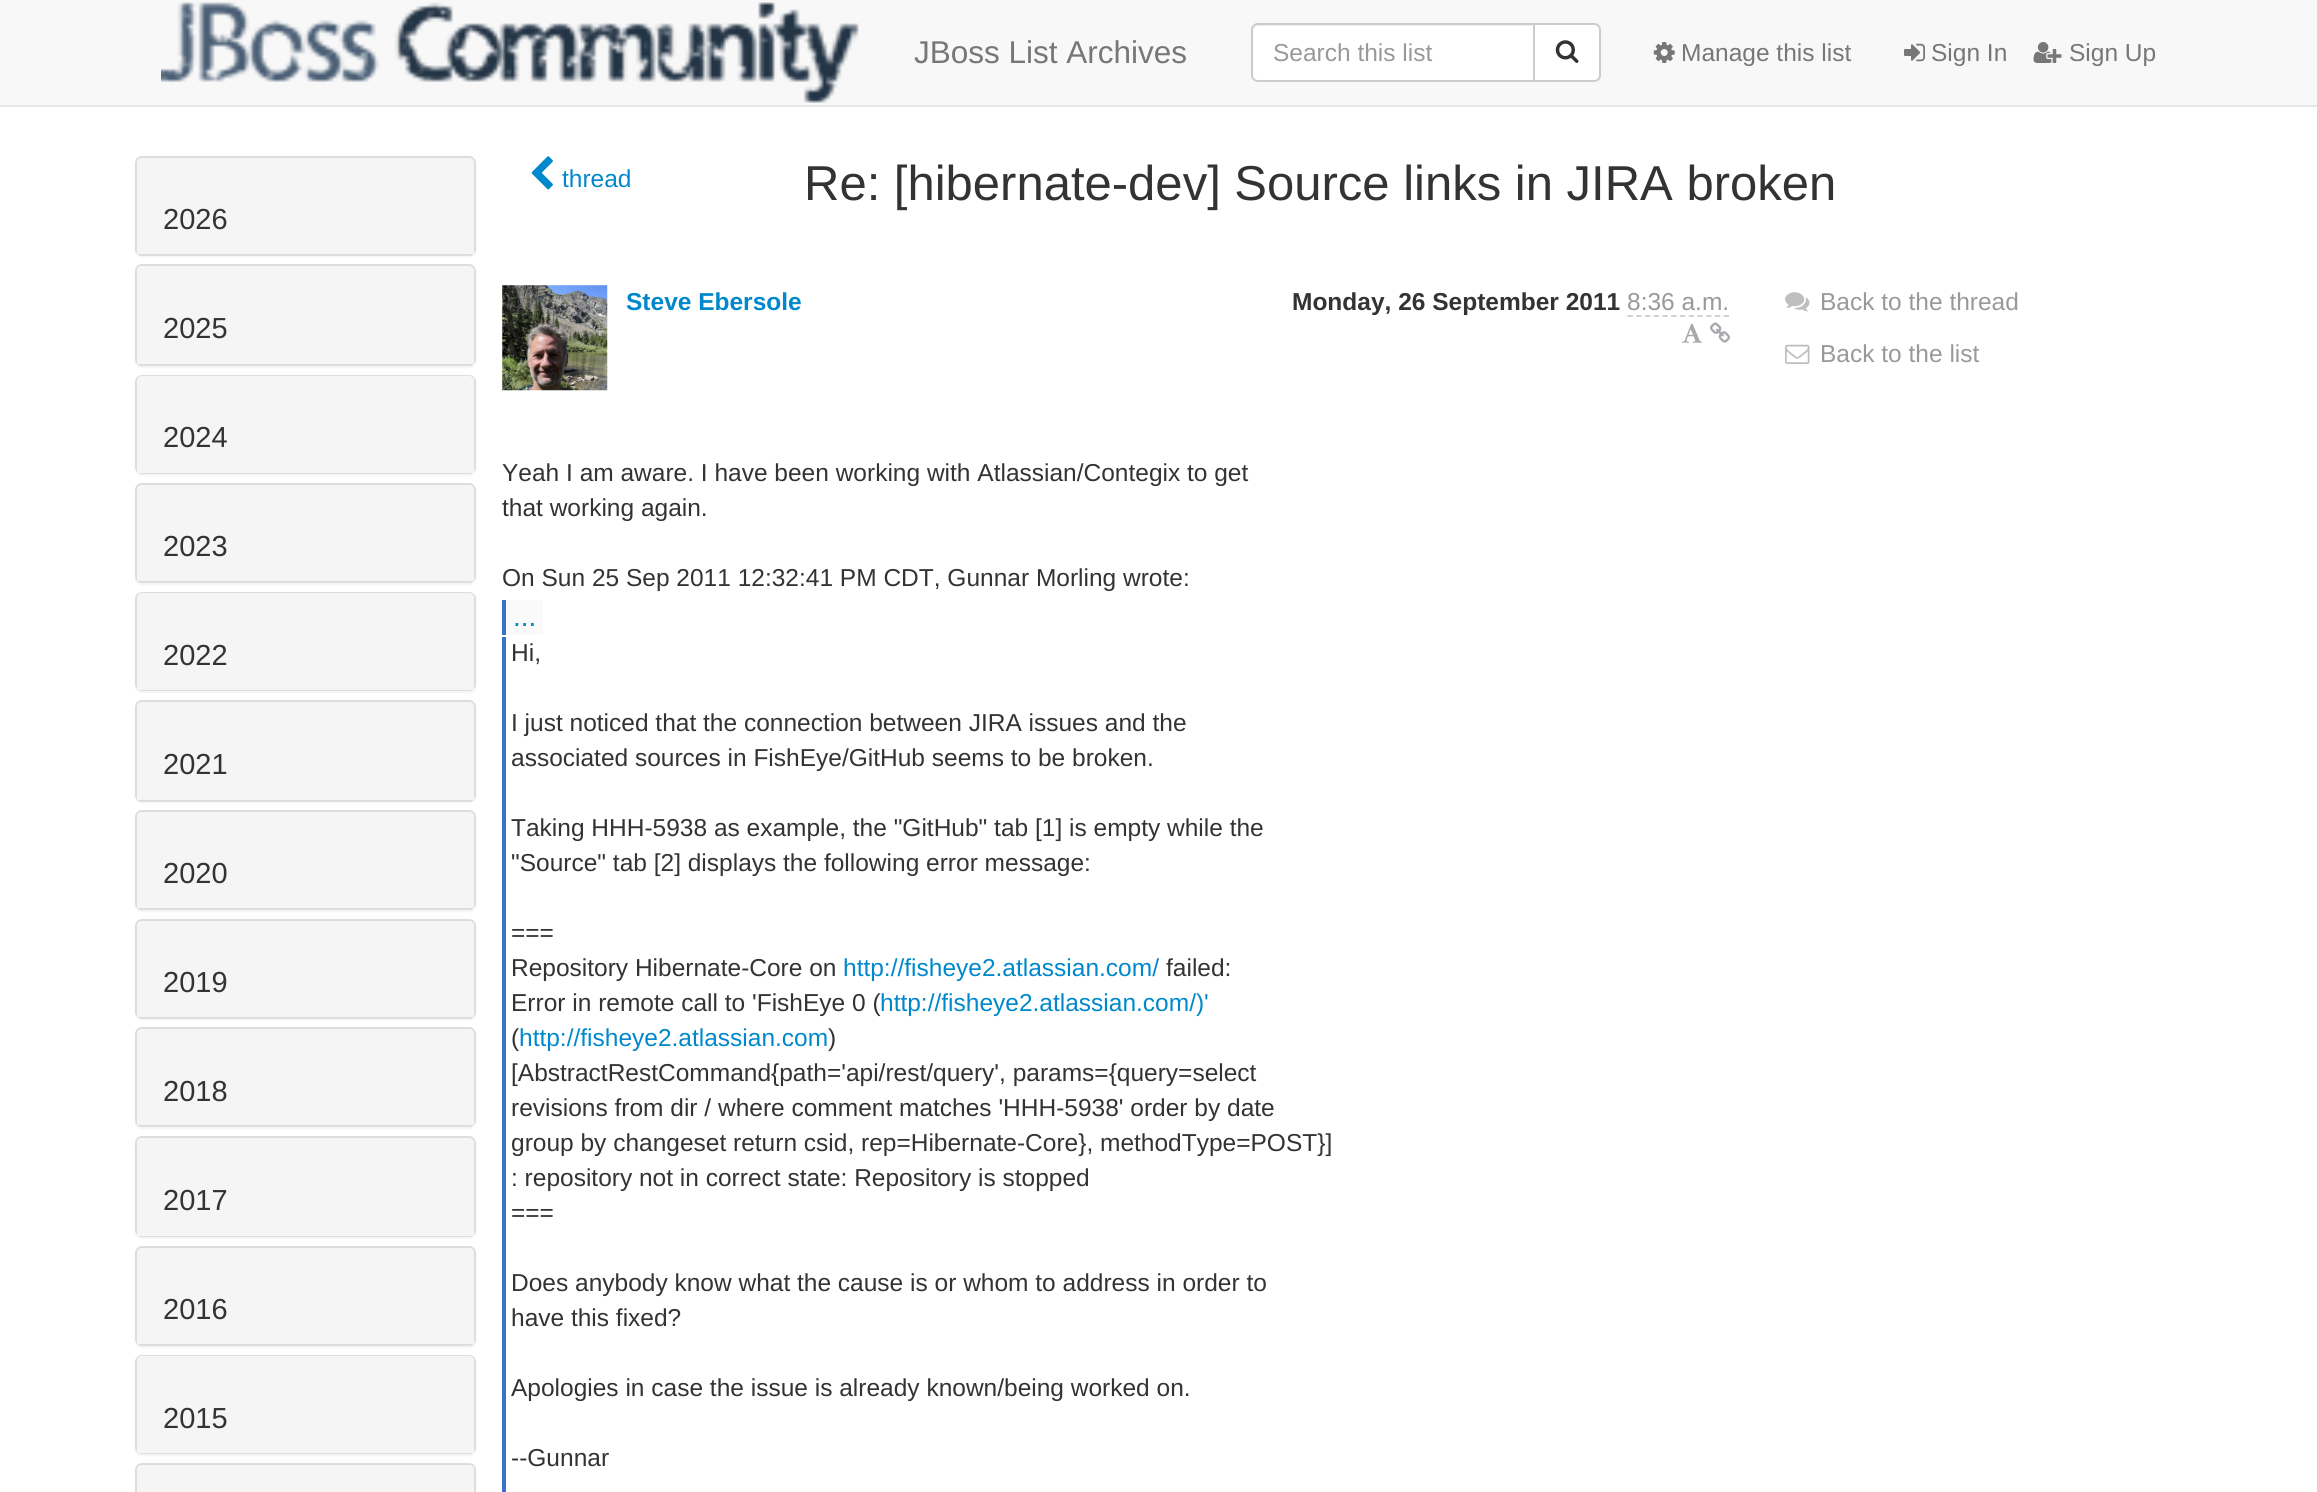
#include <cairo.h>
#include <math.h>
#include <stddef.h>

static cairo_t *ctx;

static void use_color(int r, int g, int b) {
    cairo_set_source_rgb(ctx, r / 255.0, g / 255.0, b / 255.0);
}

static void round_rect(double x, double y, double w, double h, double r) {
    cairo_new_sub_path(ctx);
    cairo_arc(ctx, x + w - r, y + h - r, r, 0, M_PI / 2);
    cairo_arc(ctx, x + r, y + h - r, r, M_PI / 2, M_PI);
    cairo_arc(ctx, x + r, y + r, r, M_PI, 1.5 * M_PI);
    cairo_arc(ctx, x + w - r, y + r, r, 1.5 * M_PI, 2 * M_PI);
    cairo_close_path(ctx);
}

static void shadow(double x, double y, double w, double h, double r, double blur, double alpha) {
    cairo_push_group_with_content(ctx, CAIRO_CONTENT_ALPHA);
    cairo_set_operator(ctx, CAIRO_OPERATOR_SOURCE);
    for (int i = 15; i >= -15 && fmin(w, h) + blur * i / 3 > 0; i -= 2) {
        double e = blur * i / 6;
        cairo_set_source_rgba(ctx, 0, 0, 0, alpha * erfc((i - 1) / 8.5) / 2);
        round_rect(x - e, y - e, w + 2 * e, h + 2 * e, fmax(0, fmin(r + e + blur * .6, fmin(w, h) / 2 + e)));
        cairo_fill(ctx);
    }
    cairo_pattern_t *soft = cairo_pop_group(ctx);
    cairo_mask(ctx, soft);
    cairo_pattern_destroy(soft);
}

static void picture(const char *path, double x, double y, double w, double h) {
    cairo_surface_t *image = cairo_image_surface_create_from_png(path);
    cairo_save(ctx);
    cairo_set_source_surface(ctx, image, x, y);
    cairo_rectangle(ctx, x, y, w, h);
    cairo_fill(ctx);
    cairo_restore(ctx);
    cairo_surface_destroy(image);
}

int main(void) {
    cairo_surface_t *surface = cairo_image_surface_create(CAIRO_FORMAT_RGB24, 2317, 1492);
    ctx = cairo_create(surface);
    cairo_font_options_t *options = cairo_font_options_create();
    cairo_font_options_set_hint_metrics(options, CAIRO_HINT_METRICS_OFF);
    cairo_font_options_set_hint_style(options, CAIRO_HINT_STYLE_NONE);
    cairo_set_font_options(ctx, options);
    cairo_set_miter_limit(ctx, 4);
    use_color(255, 255, 255);
    cairo_paint(ctx);
    use_color(248, 248, 248);
    cairo_rectangle(ctx, 0, 0, 2317, 105);
    cairo_fill(ctx);
    use_color(231, 231, 231);
    cairo_rectangle(ctx, 0, 105, 2317, 2);
    cairo_fill(ctx);
    picture("img1.png", 161, 2, 698, 101);
    cairo_select_font_face(ctx, "Liberation Sans", CAIRO_FONT_SLANT_NORMAL, CAIRO_FONT_WEIGHT_NORMAL);
    cairo_set_font_size(ctx, 31.5);
    use_color(119, 119, 119);
    cairo_move_to(ctx, 914, 63);
    cairo_show_text(ctx, "JBoss List Archives");
    use_color(255, 255, 255);
    cairo_new_path(ctx);
    cairo_move_to(ctx, 1258, 23);
    cairo_line_to(ctx, 1535, 23);
    cairo_line_to(ctx, 1535, 82);
    cairo_line_to(ctx, 1258, 82);
    cairo_curve_to(ctx, 1254, 82, 1251, 79, 1251, 75);
    cairo_line_to(ctx, 1251, 30);
    cairo_curve_to(ctx, 1251, 26, 1254, 23, 1258, 23);
    cairo_close_path(ctx);
    cairo_fill(ctx);
    use_color(236, 236, 236);
    cairo_new_path(ctx);
    cairo_move_to(ctx, 1258, 26);
    cairo_line_to(ctx, 1533, 26);
    cairo_line_to(ctx, 1533, 25);
    cairo_line_to(ctx, 1257, 25);
    cairo_curve_to(ctx, 1253, 26, 1253, 29, 1253, 32);
    cairo_curve_to(ctx, 1253, 29, 1255, 26, 1258, 26);
    cairo_close_path(ctx);
    cairo_fill(ctx);
    cairo_new_path(ctx);
    cairo_move_to(ctx, 1258, 24);
    cairo_line_to(ctx, 1534, 24);
    cairo_line_to(ctx, 1534, 81);
    cairo_line_to(ctx, 1258, 81);
    cairo_curve_to(ctx, 1254.5, 81, 1252, 78.5, 1252, 75);
    cairo_line_to(ctx, 1252, 30);
    cairo_curve_to(ctx, 1252, 26.5, 1254.5, 24, 1258, 24);
    cairo_close_path(ctx);
    use_color(204, 204, 204);
    cairo_stroke(ctx);
    cairo_set_font_size(ctx, 24.5);
    use_color(153, 153, 153);
    cairo_move_to(ctx, 1273, 61);
    cairo_show_text(ctx, "Search this list");
    use_color(255, 255, 255);
    cairo_new_path(ctx);
    cairo_move_to(ctx, 1534, 24);
    cairo_line_to(ctx, 1594, 24);
    cairo_curve_to(ctx, 1597.5, 24, 1600, 26.5, 1600, 30);
    cairo_line_to(ctx, 1600, 75);
    cairo_curve_to(ctx, 1600, 78.5, 1597.5, 81, 1594, 81);
    cairo_line_to(ctx, 1534, 81);
    cairo_close_path(ctx);
    cairo_fill_preserve(ctx);
    use_color(204, 204, 204);
    cairo_stroke(ctx);
    picture("img2.png", 1555, 40, 24, 23);
    picture("img3.png", 1653, 42, 22, 21);
    use_color(119, 119, 119);
    cairo_move_to(ctx, 1681, 61);
    cairo_show_text(ctx, "Manage this list");
    picture("img4.png", 1904, 43, 21, 19);
    cairo_move_to(ctx, 1931, 61);
    cairo_show_text(ctx, "Sign In");
    picture("img5.png", 2033, 42, 29, 21);
    cairo_move_to(ctx, 2069, 61);
    cairo_show_text(ctx, "Sign Up");
    use_color(0, 0, 0);
    shadow(135, 158, 341, 99, 7, 1, 0.05);
    round_rect(136, 157, 339, 98, 6);
    use_color(221, 221, 221);
    cairo_stroke(ctx);
    use_color(245, 245, 245);
    cairo_new_path(ctx);
    cairo_move_to(ctx, 142, 158);
    cairo_line_to(ctx, 469, 158);
    cairo_curve_to(ctx, 472, 158, 474, 160, 474, 163);
    cairo_line_to(ctx, 474, 254);
    cairo_line_to(ctx, 137, 254);
    cairo_line_to(ctx, 137, 163);
    cairo_curve_to(ctx, 137, 160, 139, 158, 142, 158);
    cairo_close_path(ctx);
    cairo_fill(ctx);
    cairo_set_font_size(ctx, 29);
    use_color(51, 51, 51);
    cairo_move_to(ctx, 163, 229);
    cairo_show_text(ctx, "2026");
    use_color(0, 0, 0);
    shadow(135, 266, 341, 102, 7, 1, 0.05);
    round_rect(136, 265, 339, 100, 6);
    use_color(221, 221, 221);
    cairo_stroke(ctx);
    use_color(245, 245, 245);
    cairo_new_path(ctx);
    cairo_move_to(ctx, 142, 266);
    cairo_line_to(ctx, 469, 266);
    cairo_curve_to(ctx, 472, 266, 474, 268, 474, 271);
    cairo_line_to(ctx, 474, 364);
    cairo_line_to(ctx, 137, 364);
    cairo_line_to(ctx, 137, 271);
    cairo_curve_to(ctx, 137, 268, 139, 266, 142, 266);
    cairo_close_path(ctx);
    cairo_fill(ctx);
    use_color(51, 51, 51);
    cairo_move_to(ctx, 163, 338);
    cairo_show_text(ctx, "2025");
    use_color(0, 0, 0);
    shadow(135, 376, 341, 100, 7, 1, 0.05);
    round_rect(136, 376, 339, 97, 6);
    use_color(221, 221, 221);
    cairo_stroke(ctx);
    use_color(245, 245, 245);
    cairo_new_path(ctx);
    cairo_move_to(ctx, 142, 376);
    cairo_line_to(ctx, 469, 376);
    cairo_curve_to(ctx, 472, 376, 474, 378, 474, 381);
    cairo_line_to(ctx, 474, 473);
    cairo_line_to(ctx, 137, 473);
    cairo_line_to(ctx, 137, 381);
    cairo_curve_to(ctx, 137, 378, 139, 376, 142, 376);
    cairo_close_path(ctx);
    cairo_fill(ctx);
    use_color(51, 51, 51);
    cairo_move_to(ctx, 163, 447);
    cairo_show_text(ctx, "2024");
    use_color(0, 0, 0);
    shadow(135, 485, 341, 100, 7, 1, 0.05);
    round_rect(136, 484, 339, 98, 6);
    use_color(221, 221, 221);
    cairo_stroke(ctx);
    use_color(245, 245, 245);
    cairo_new_path(ctx);
    cairo_move_to(ctx, 142, 485);
    cairo_line_to(ctx, 469, 485);
    cairo_curve_to(ctx, 472, 485, 474, 487, 474, 490);
    cairo_line_to(ctx, 474, 581);
    cairo_line_to(ctx, 137, 581);
    cairo_line_to(ctx, 137, 490);
    cairo_curve_to(ctx, 137, 487, 139, 485, 142, 485);
    cairo_close_path(ctx);
    cairo_fill(ctx);
    use_color(51, 51, 51);
    cairo_move_to(ctx, 163, 556);
    cairo_show_text(ctx, "2023");
    use_color(0, 0, 0);
    shadow(135, 593, 341, 100, 7, 1, 0.05);
    round_rect(136, 593, 339, 97, 6);
    use_color(221, 221, 221);
    cairo_stroke(ctx);
    use_color(245, 245, 245);
    cairo_new_path(ctx);
    cairo_move_to(ctx, 142, 593);
    cairo_line_to(ctx, 469, 593);
    cairo_curve_to(ctx, 472, 593, 474, 595, 474, 598);
    cairo_line_to(ctx, 474, 690);
    cairo_line_to(ctx, 137, 690);
    cairo_line_to(ctx, 137, 598);
    cairo_curve_to(ctx, 137, 595, 139, 593, 142, 593);
    cairo_close_path(ctx);
    cairo_fill(ctx);
    use_color(51, 51, 51);
    cairo_move_to(ctx, 163, 665);
    cairo_show_text(ctx, "2022");
    use_color(0, 0, 0);
    shadow(135, 702, 341, 101, 7, 1, 0.05);
    round_rect(136, 701, 339, 100, 6);
    use_color(221, 221, 221);
    cairo_stroke(ctx);
    use_color(245, 245, 245);
    cairo_new_path(ctx);
    cairo_move_to(ctx, 142, 702);
    cairo_line_to(ctx, 469, 702);
    cairo_curve_to(ctx, 472, 702, 474, 704, 474, 707);
    cairo_line_to(ctx, 474, 800);
    cairo_line_to(ctx, 137, 800);
    cairo_line_to(ctx, 137, 707);
    cairo_curve_to(ctx, 137, 704, 139, 702, 142, 702);
    cairo_close_path(ctx);
    cairo_fill(ctx);
    use_color(51, 51, 51);
    cairo_move_to(ctx, 163, 774);
    cairo_show_text(ctx, "2021");
    use_color(0, 0, 0);
    shadow(135, 812, 341, 100, 7, 1, 0.05);
    round_rect(136, 811, 339, 98, 6);
    use_color(221, 221, 221);
    cairo_stroke(ctx);
    use_color(245, 245, 245);
    cairo_new_path(ctx);
    cairo_move_to(ctx, 142, 812);
    cairo_line_to(ctx, 469, 812);
    cairo_curve_to(ctx, 472, 812, 474, 814, 474, 817);
    cairo_line_to(ctx, 474, 908);
    cairo_line_to(ctx, 137, 908);
    cairo_line_to(ctx, 137, 817);
    cairo_curve_to(ctx, 137, 814, 139, 812, 142, 812);
    cairo_close_path(ctx);
    cairo_fill(ctx);
    use_color(51, 51, 51);
    cairo_move_to(ctx, 163, 883);
    cairo_show_text(ctx, "2020");
    use_color(0, 0, 0);
    shadow(135, 921, 341, 99, 7, 1, 0.05);
    round_rect(136, 920, 339, 98, 6);
    use_color(221, 221, 221);
    cairo_stroke(ctx);
    use_color(245, 245, 245);
    cairo_new_path(ctx);
    cairo_move_to(ctx, 142, 921);
    cairo_line_to(ctx, 469, 921);
    cairo_curve_to(ctx, 472, 921, 474, 923, 474, 926);
    cairo_line_to(ctx, 474, 1017);
    cairo_line_to(ctx, 137, 1017);
    cairo_line_to(ctx, 137, 926);
    cairo_curve_to(ctx, 137, 923, 139, 921, 142, 921);
    cairo_close_path(ctx);
    cairo_fill(ctx);
    use_color(51, 51, 51);
    cairo_move_to(ctx, 163, 992);
    cairo_show_text(ctx, "2019");
    use_color(0, 0, 0);
    shadow(135, 1029, 341, 100, 7, 1, 0.05);
    round_rect(136, 1028, 339, 98, 6);
    use_color(221, 221, 221);
    cairo_stroke(ctx);
    use_color(245, 245, 245);
    cairo_new_path(ctx);
    cairo_move_to(ctx, 142, 1029);
    cairo_line_to(ctx, 469, 1029);
    cairo_curve_to(ctx, 472, 1029, 474, 1031, 474, 1034);
    cairo_line_to(ctx, 474, 1125);
    cairo_line_to(ctx, 137, 1125);
    cairo_line_to(ctx, 137, 1034);
    cairo_curve_to(ctx, 137, 1031, 139, 1029, 142, 1029);
    cairo_close_path(ctx);
    cairo_fill(ctx);
    use_color(51, 51, 51);
    cairo_move_to(ctx, 163, 1101);
    cairo_show_text(ctx, "2018");
    use_color(0, 0, 0);
    shadow(135, 1138, 341, 101, 7, 1, 0.05);
    round_rect(136, 1137, 339, 99, 6);
    use_color(221, 221, 221);
    cairo_stroke(ctx);
    use_color(245, 245, 245);
    cairo_new_path(ctx);
    cairo_move_to(ctx, 142, 1138);
    cairo_line_to(ctx, 469, 1138);
    cairo_curve_to(ctx, 472, 1138, 474, 1140, 474, 1143);
    cairo_line_to(ctx, 474, 1236);
    cairo_line_to(ctx, 137, 1236);
    cairo_line_to(ctx, 137, 1143);
    cairo_curve_to(ctx, 137, 1140, 139, 1138, 142, 1138);
    cairo_close_path(ctx);
    cairo_fill(ctx);
    use_color(51, 51, 51);
    cairo_move_to(ctx, 163, 1210);
    cairo_show_text(ctx, "2017");
    use_color(0, 0, 0);
    shadow(135, 1248, 341, 100, 7, 1, 0.05);
    round_rect(136, 1247, 339, 98, 6);
    use_color(221, 221, 221);
    cairo_stroke(ctx);
    use_color(245, 245, 245);
    cairo_new_path(ctx);
    cairo_move_to(ctx, 142, 1248);
    cairo_line_to(ctx, 469, 1248);
    cairo_curve_to(ctx, 472, 1248, 474, 1250, 474, 1253);
    cairo_line_to(ctx, 474, 1344);
    cairo_line_to(ctx, 137, 1344);
    cairo_line_to(ctx, 137, 1253);
    cairo_curve_to(ctx, 137, 1250, 139, 1248, 142, 1248);
    cairo_close_path(ctx);
    cairo_fill(ctx);
    use_color(51, 51, 51);
    cairo_move_to(ctx, 163, 1319);
    cairo_show_text(ctx, "2016");
    use_color(0, 0, 0);
    shadow(135, 1356, 341, 100, 7, 1, 0.05);
    round_rect(136, 1356, 339, 97, 6);
    use_color(221, 221, 221);
    cairo_stroke(ctx);
    use_color(245, 245, 245);
    cairo_new_path(ctx);
    cairo_move_to(ctx, 142, 1356);
    cairo_line_to(ctx, 469, 1356);
    cairo_curve_to(ctx, 472, 1356, 474, 1358, 474, 1361);
    cairo_line_to(ctx, 474, 1453);
    cairo_line_to(ctx, 137, 1453);
    cairo_line_to(ctx, 137, 1361);
    cairo_curve_to(ctx, 137, 1358, 139, 1356, 142, 1356);
    cairo_close_path(ctx);
    cairo_fill(ctx);
    use_color(51, 51, 51);
    cairo_move_to(ctx, 163, 1428);
    cairo_show_text(ctx, "2015");
    round_rect(136, 1464, 339, 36, 6);
    use_color(221, 221, 221);
    cairo_stroke(ctx);
    use_color(245, 245, 245);
    cairo_new_path(ctx);
    cairo_move_to(ctx, 142, 1465);
    cairo_line_to(ctx, 469, 1465);
    cairo_curve_to(ctx, 472, 1465, 474, 1467, 474, 1470);
    cairo_line_to(ctx, 474, 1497);
    cairo_line_to(ctx, 137, 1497);
    cairo_line_to(ctx, 137, 1470);
    cairo_curve_to(ctx, 137, 1467, 139, 1465, 142, 1465);
    cairo_close_path(ctx);
    cairo_fill(ctx);
    picture("img6.png", 531, 156, 22, 34);
    cairo_set_font_size(ctx, 24.5);
    use_color(0, 136, 204);
    cairo_move_to(ctx, 562, 187);
    cairo_show_text(ctx, "thread");
    cairo_set_font_size(ctx, 49);
    use_color(51, 51, 51);
    cairo_move_to(ctx, 804, 200);
    cairo_show_text(ctx, "Re: [hibernate-dev] Source links in JIRA broken");
    picture("img7.png", 502, 285, 106, 106);
    cairo_select_font_face(ctx, "Liberation Sans", CAIRO_FONT_SLANT_NORMAL, CAIRO_FONT_WEIGHT_BOLD);
    cairo_set_font_size(ctx, 24.5);
    use_color(0, 136, 204);
    cairo_move_to(ctx, 626, 310);
    cairo_show_text(ctx, "Steve Ebersole");
    use_color(51, 51, 51);
    cairo_move_to(ctx, 1292, 310);
    cairo_show_text(ctx, "Monday, 26 September 2011");
    cairo_select_font_face(ctx, "Liberation Sans", CAIRO_FONT_SLANT_NORMAL, CAIRO_FONT_WEIGHT_NORMAL);
    use_color(153, 153, 153);
    cairo_move_to(ctx, 1627, 310);
    cairo_show_text(ctx, "8:36 a.m.");
    cairo_new_path(ctx);
    cairo_move_to(ctx, 1627.5, 316);
    cairo_line_to(ctx, 1729, 316);
    use_color(204, 204, 204);
    cairo_set_line_width(ctx, 1.8);
    cairo_set_dash(ctx, (double[]){5.25, 3.5}, 2, 0);
    cairo_stroke(ctx);
    picture("img8.png", 1681, 323, 22, 20);
    picture("img9.png", 1710, 322, 20, 21);
    use_color(51, 51, 51);
    cairo_move_to(ctx, 502, 481);
    cairo_show_text(ctx, "Yeah I am aware. I have been working with Atlassian/Contegix to get");
    cairo_move_to(ctx, 502, 516);
    cairo_show_text(ctx, "that working again.");
    cairo_move_to(ctx, 502, 586);
    cairo_show_text(ctx, "On Sun 25 Sep 2011 12:32:41 PM CDT, Gunnar Morling wrote:");
    use_color(250, 250, 250);
    cairo_rectangle(ctx, 506, 600, 37, 35);
    cairo_fill(ctx);
    cairo_set_font_size(ctx, 28);
    use_color(0, 136, 204);
    cairo_move_to(ctx, 513, 626);
    cairo_show_text(ctx, "...");
    use_color(55, 113, 200);
    cairo_rectangle(ctx, 502, 600, 4, 35);
    cairo_fill(ctx);
    cairo_rectangle(ctx, 502, 637, 4, 855);
    cairo_fill(ctx);
    cairo_set_font_size(ctx, 24.5);
    use_color(51, 51, 51);
    cairo_move_to(ctx, 511, 661);
    cairo_show_text(ctx, "Hi,");
    cairo_move_to(ctx, 511, 731);
    cairo_show_text(ctx, "I just noticed that the connection between JIRA issues and the");
    cairo_move_to(ctx, 511, 766);
    cairo_show_text(ctx, "associated sources in FishEye/GitHub seems to be broken.");
    cairo_move_to(ctx, 511, 836);
    cairo_show_text(ctx, "Taking HHH-5938 as example, the \"GitHub\" tab [1] is empty while the");
    cairo_move_to(ctx, 511, 871);
    cairo_show_text(ctx, "\"Source\" tab [2] displays the following error message:");
    cairo_move_to(ctx, 511, 941);
    cairo_show_text(ctx, "===");
    cairo_move_to(ctx, 511, 976);
    cairo_show_text(ctx, "Repository Hibernate-Core on");
    use_color(0, 136, 204);
    cairo_move_to(ctx, 843, 976);
    cairo_show_text(ctx, "http://fisheye2.atlassian.com/");
    use_color(51, 51, 51);
    cairo_move_to(ctx, 1166, 976);
    cairo_show_text(ctx, "failed:");
    cairo_move_to(ctx, 511, 1011);
    cairo_show_text(ctx, "Error in remote call to 'FishEye 0 (");
    use_color(0, 136, 204);
    cairo_move_to(ctx, 880, 1011);
    cairo_show_text(ctx, "http://fisheye2.atlassian.com/)'");
    use_color(51, 51, 51);
    cairo_move_to(ctx, 511, 1046);
    cairo_show_text(ctx, "(");
    use_color(0, 136, 204);
    cairo_move_to(ctx, 519, 1046);
    cairo_show_text(ctx, "http://fisheye2.atlassian.com");
    use_color(51, 51, 51);
    cairo_move_to(ctx, 828, 1046);
    cairo_show_text(ctx, ")");
    cairo_move_to(ctx, 511, 1081);
    cairo_show_text(ctx, "[AbstractRestCommand{path='api/rest/query', params={query=select");
    cairo_move_to(ctx, 511, 1116);
    cairo_show_text(ctx, "revisions from dir / where comment matches 'HHH-5938' order by date");
    cairo_move_to(ctx, 511, 1151);
    cairo_show_text(ctx, "group by changeset return csid, rep=Hibernate-Core}, methodType=POST}]");
    cairo_move_to(ctx, 511, 1186);
    cairo_show_text(ctx, ": repository not in correct state: Repository is stopped");
    cairo_move_to(ctx, 511, 1221);
    cairo_show_text(ctx, "===");
    cairo_move_to(ctx, 511, 1291);
    cairo_show_text(ctx, "Does anybody know what the cause is or whom to address in order to");
    cairo_move_to(ctx, 511, 1326);
    cairo_show_text(ctx, "have this fixed?");
    cairo_move_to(ctx, 511, 1396);
    cairo_show_text(ctx, "Apologies in case the issue is already known/being worked on.");
    cairo_move_to(ctx, 511, 1466);
    cairo_show_text(ctx, "--Gunnar");
    picture("img10.png", 1785, 292, 25, 20);
    use_color(153, 153, 153);
    cairo_move_to(ctx, 1820, 310);
    cairo_show_text(ctx, "Back to the thread");
    picture("img11.png", 1785, 344, 25, 20);
    cairo_move_to(ctx, 1820, 362);
    cairo_show_text(ctx, "Back to the list");
    cairo_surface_write_to_png(surface, "result.png");
    cairo_font_options_destroy(options);
    cairo_destroy(ctx);
    cairo_surface_destroy(surface);
    return 0;
}
